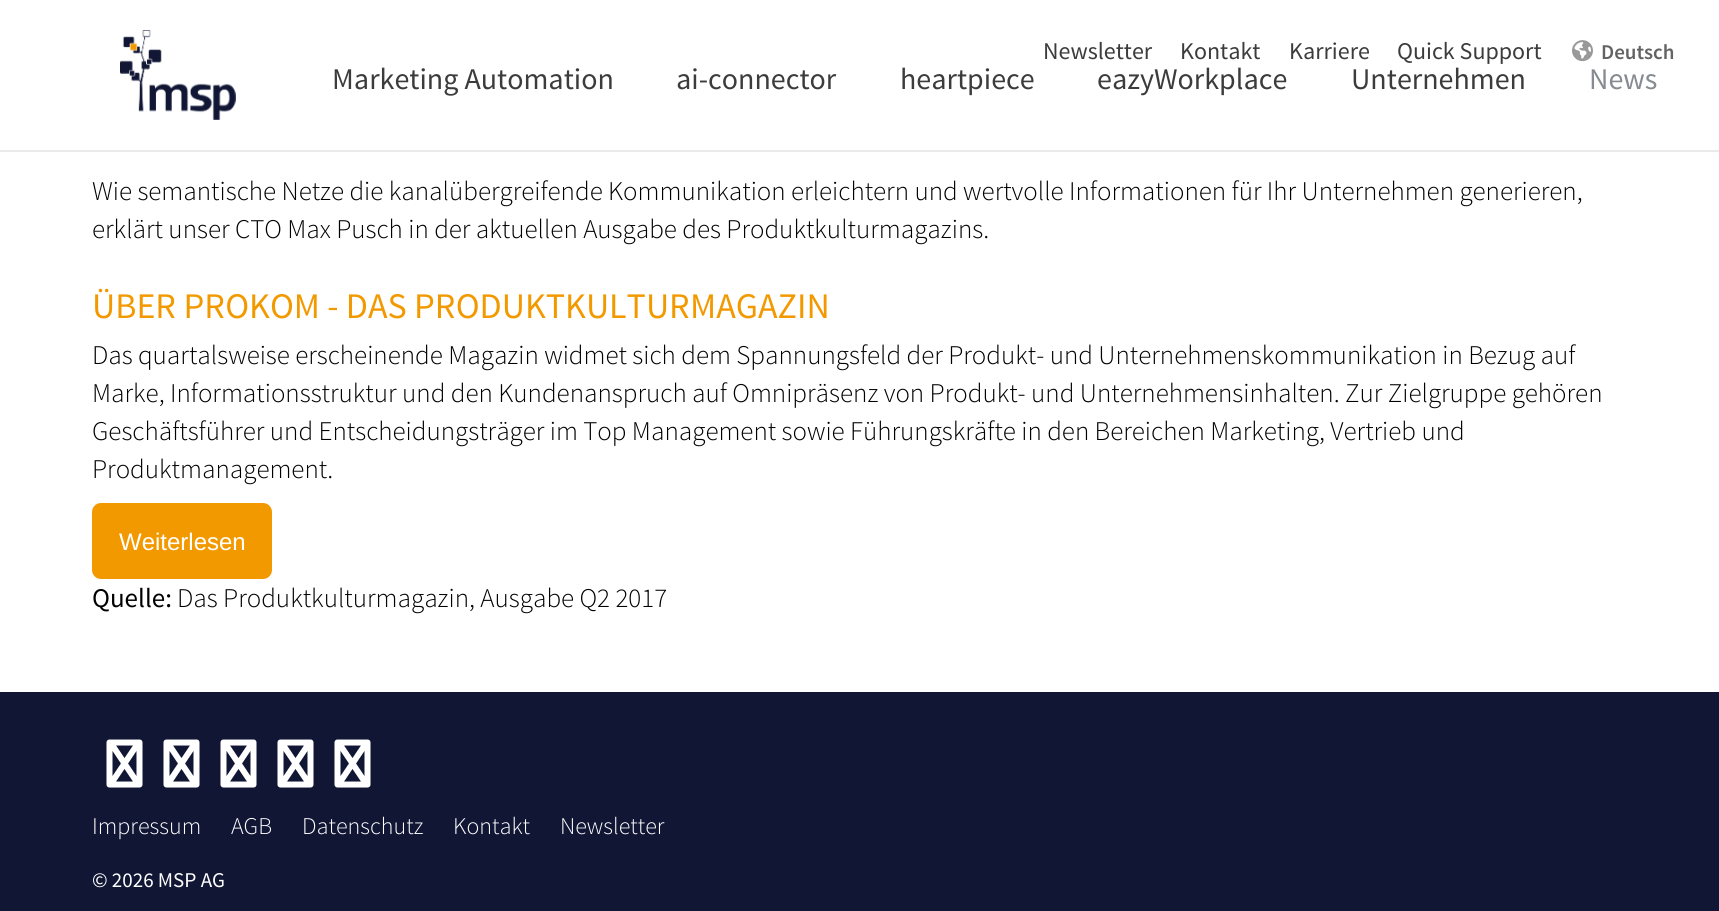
#include <cairo.h>
#include <math.h>
#include <stddef.h>

static cairo_t *ctx;

static void use_color(int r, int g, int b) {
    cairo_set_source_rgb(ctx, r / 255.0, g / 255.0, b / 255.0);
}

static void round_rect(double x, double y, double w, double h, double r) {
    cairo_new_sub_path(ctx);
    cairo_arc(ctx, x + w - r, y + h - r, r, 0, M_PI / 2);
    cairo_arc(ctx, x + r, y + h - r, r, M_PI / 2, M_PI);
    cairo_arc(ctx, x + r, y + r, r, M_PI, 1.5 * M_PI);
    cairo_arc(ctx, x + w - r, y + r, r, 1.5 * M_PI, 2 * M_PI);
    cairo_close_path(ctx);
}

static void picture(const char *path, double x, double y, double w, double h) {
    cairo_surface_t *image = cairo_image_surface_create_from_png(path);
    cairo_save(ctx);
    cairo_set_source_surface(ctx, image, x, y);
    cairo_rectangle(ctx, x, y, w, h);
    cairo_fill(ctx);
    cairo_restore(ctx);
    cairo_surface_destroy(image);
}

int main(void) {
    cairo_surface_t *surface = cairo_image_surface_create(CAIRO_FORMAT_RGB24, 1719, 911);
    ctx = cairo_create(surface);
    cairo_font_options_t *options = cairo_font_options_create();
    cairo_font_options_set_hint_metrics(options, CAIRO_HINT_METRICS_OFF);
    cairo_font_options_set_hint_style(options, CAIRO_HINT_STYLE_NONE);
    cairo_set_font_options(ctx, options);
    cairo_set_miter_limit(ctx, 4);
    use_color(255, 255, 255);
    cairo_paint(ctx);
    picture("img1.png", 120, 30, 116, 90);
    cairo_select_font_face(ctx, "Source Sans Pro", CAIRO_FONT_SLANT_NORMAL, CAIRO_FONT_WEIGHT_NORMAL);
    cairo_set_font_size(ctx, 24);
    use_color(60, 60, 60);
    cairo_move_to(ctx, 1043, 59);
    cairo_show_text(ctx, "Newsletter");
    cairo_move_to(ctx, 1180, 59);
    cairo_show_text(ctx, "Kontakt");
    cairo_move_to(ctx, 1289, 59);
    cairo_show_text(ctx, "Karriere");
    cairo_move_to(ctx, 1397, 59);
    cairo_show_text(ctx, "Quick Support");
    picture("img2.png", 1572, 40, 21, 22);
    cairo_select_font_face(ctx, "Source Sans Pro SemiBold", CAIRO_FONT_SLANT_NORMAL, CAIRO_FONT_WEIGHT_NORMAL);
    cairo_set_font_size(ctx, 21);
    use_color(99, 99, 99);
    cairo_move_to(ctx, 1601, 59);
    cairo_show_text(ctx, "Deutsch");
    cairo_select_font_face(ctx, "Source Sans Pro", CAIRO_FONT_SLANT_NORMAL, CAIRO_FONT_WEIGHT_NORMAL);
    cairo_set_font_size(ctx, 30);
    use_color(60, 60, 60);
    cairo_move_to(ctx, 332, 89);
    cairo_show_text(ctx, "Marketing Automation");
    cairo_move_to(ctx, 676, 89);
    cairo_show_text(ctx, "ai-connector");
    cairo_move_to(ctx, 900, 89);
    cairo_show_text(ctx, "heartpiece");
    cairo_move_to(ctx, 1097, 89);
    cairo_show_text(ctx, "eazyWorkplace");
    cairo_move_to(ctx, 1351, 89);
    cairo_show_text(ctx, "Unternehmen");
    use_color(134, 139, 145);
    cairo_move_to(ctx, 1589, 89);
    cairo_show_text(ctx, "News");
    use_color(234, 234, 234);
    cairo_rectangle(ctx, 0, 150, 1719, 2);
    cairo_fill(ctx);
    cairo_select_font_face(ctx, "Source Sans Pro Light", CAIRO_FONT_SLANT_NORMAL, CAIRO_FONT_WEIGHT_NORMAL);
    cairo_set_font_size(ctx, 27);
    use_color(0, 0, 0);
    cairo_move_to(ctx, 92, 200);
    cairo_show_text(ctx, "Wie semantische Netze die kanalübergreifende Kommunikation erleichtern und wertvolle Informationen für Ihr Unternehmen generieren,");
    cairo_move_to(ctx, 92, 238);
    cairo_show_text(ctx, "erklärt unser CTO Max Pusch in der aktuellen Ausgabe des Produktkulturmagazins.");
    cairo_select_font_face(ctx, "Source Sans Pro", CAIRO_FONT_SLANT_NORMAL, CAIRO_FONT_WEIGHT_NORMAL);
    cairo_set_font_size(ctx, 36);
    use_color(243, 153, 0);
    cairo_move_to(ctx, 92, 318);
    cairo_show_text(ctx, "ÜBER PROKOM - DAS PRODUKTKULTURMAGAZIN");
    cairo_select_font_face(ctx, "Source Sans Pro Light", CAIRO_FONT_SLANT_NORMAL, CAIRO_FONT_WEIGHT_NORMAL);
    cairo_set_font_size(ctx, 27);
    use_color(0, 0, 0);
    cairo_move_to(ctx, 92, 364);
    cairo_show_text(ctx, "Das quartalsweise erscheinende Magazin widmet sich dem Spannungsfeld der Produkt- und Unternehmenskommunikation in Bezug auf");
    cairo_move_to(ctx, 92, 402);
    cairo_show_text(ctx, "Marke, Informationsstruktur und den Kundenanspruch auf Omnipräsenz von Produkt- und Unternehmensinhalten. Zur Zielgruppe gehören");
    cairo_move_to(ctx, 92, 440);
    cairo_show_text(ctx, "Geschäftsführer und Entscheidungsträger im Top Management sowie Führungskräfte in den Bereichen Marketing, Vertrieb und");
    cairo_move_to(ctx, 92, 478);
    cairo_show_text(ctx, "Produktmanagement.");
    use_color(243, 153, 0);
    round_rect(92, 503, 180, 76, 9);
    cairo_fill(ctx);
    cairo_select_font_face(ctx, "Liberation Sans", CAIRO_FONT_SLANT_NORMAL, CAIRO_FONT_WEIGHT_NORMAL);
    cairo_set_font_size(ctx, 24);
    use_color(255, 255, 255);
    cairo_move_to(ctx, 119, 550);
    cairo_show_text(ctx, "Weiterlesen");
    cairo_select_font_face(ctx, "Source Sans Pro", CAIRO_FONT_SLANT_NORMAL, CAIRO_FONT_WEIGHT_NORMAL);
    cairo_set_font_size(ctx, 27);
    use_color(0, 0, 0);
    cairo_move_to(ctx, 92, 607);
    cairo_show_text(ctx, "Quelle:");
    cairo_select_font_face(ctx, "Source Sans Pro Light", CAIRO_FONT_SLANT_NORMAL, CAIRO_FONT_WEIGHT_NORMAL);
    cairo_move_to(ctx, 177, 607);
    cairo_show_text(ctx, "Das Produktkulturmagazin, Ausgabe Q2 2017");
    use_color(17, 22, 53);
    cairo_rectangle(ctx, 0, 692, 1719, 219);
    cairo_fill(ctx);
    picture("img3.png", 106, 739, 37, 49);
    picture("img3.png", 163, 739, 37, 49);
    picture("img3.png", 220, 739, 37, 49);
    picture("img3.png", 277, 739, 37, 49);
    picture("img3.png", 334, 739, 37, 49);
    cairo_set_font_size(ctx, 24);
    use_color(255, 255, 255);
    cairo_move_to(ctx, 92, 834);
    cairo_show_text(ctx, "Impressum");
    cairo_move_to(ctx, 231, 834);
    cairo_show_text(ctx, "AGB");
    cairo_move_to(ctx, 302, 834);
    cairo_show_text(ctx, "Datenschutz");
    cairo_move_to(ctx, 453, 834);
    cairo_show_text(ctx, "Kontakt");
    cairo_move_to(ctx, 560, 834);
    cairo_show_text(ctx, "Newsletter");
    cairo_select_font_face(ctx, "Source Sans Pro", CAIRO_FONT_SLANT_NORMAL, CAIRO_FONT_WEIGHT_NORMAL);
    cairo_set_font_size(ctx, 21);
    cairo_move_to(ctx, 92, 887);
    cairo_show_text(ctx, "© 2026 MSP AG");
    cairo_surface_write_to_png(surface, "result.png");
    cairo_font_options_destroy(options);
    cairo_destroy(ctx);
    cairo_surface_destroy(surface);
    return 0;
}
